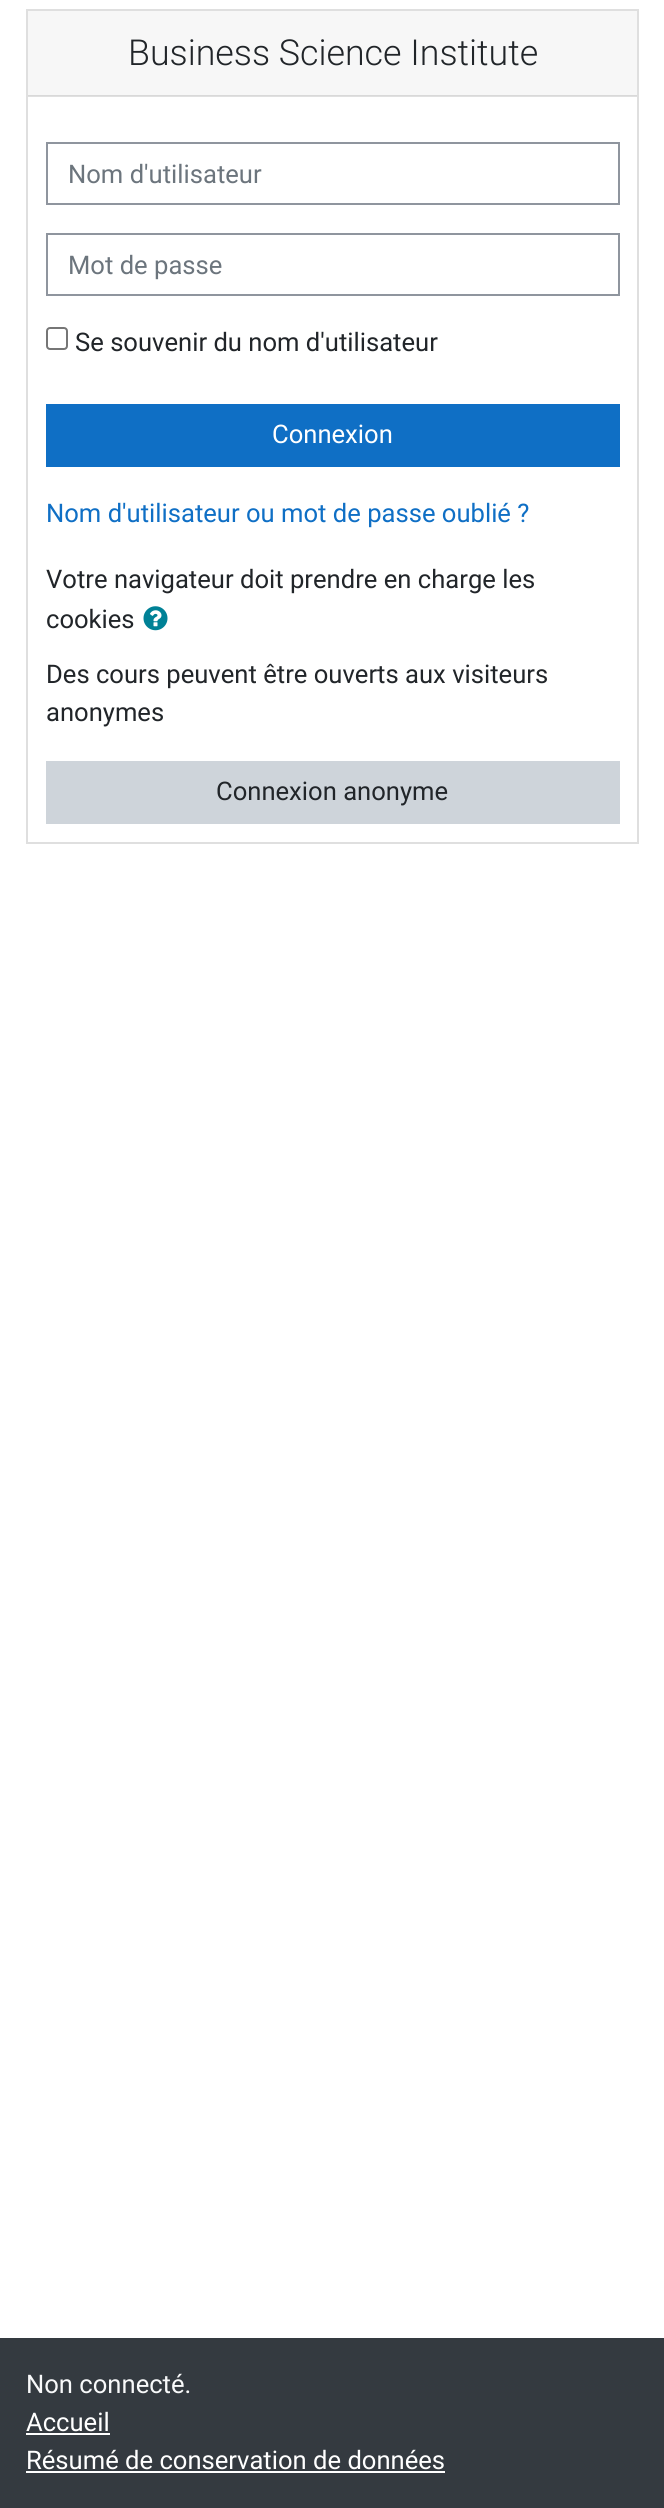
#include <cairo.h>
#include <math.h>
#include <stddef.h>

static cairo_t *ctx;

static void use_color(int r, int g, int b) {
    cairo_set_source_rgb(ctx, r / 255.0, g / 255.0, b / 255.0);
}

static void round_rect(double x, double y, double w, double h, double r) {
    cairo_new_sub_path(ctx);
    cairo_arc(ctx, x + w - r, y + h - r, r, 0, M_PI / 2);
    cairo_arc(ctx, x + r, y + h - r, r, M_PI / 2, M_PI);
    cairo_arc(ctx, x + r, y + r, r, M_PI, 1.5 * M_PI);
    cairo_arc(ctx, x + w - r, y + r, r, 1.5 * M_PI, 2 * M_PI);
    cairo_close_path(ctx);
}

static void picture(const char *path, double x, double y, double w, double h) {
    cairo_surface_t *image = cairo_image_surface_create_from_png(path);
    cairo_save(ctx);
    cairo_set_source_surface(ctx, image, x, y);
    cairo_rectangle(ctx, x, y, w, h);
    cairo_fill(ctx);
    cairo_restore(ctx);
    cairo_surface_destroy(image);
}

int main(void) {
    cairo_surface_t *surface = cairo_image_surface_create(CAIRO_FORMAT_RGB24, 664, 2508);
    ctx = cairo_create(surface);
    cairo_font_options_t *options = cairo_font_options_create();
    cairo_font_options_set_hint_metrics(options, CAIRO_HINT_METRICS_OFF);
    cairo_font_options_set_hint_style(options, CAIRO_HINT_STYLE_NONE);
    cairo_set_font_options(ctx, options);
    cairo_set_miter_limit(ctx, 4);
    use_color(255, 255, 255);
    cairo_paint(ctx);
    use_color(224, 224, 224);
    cairo_rectangle(ctx, 28, 96, 609, 1);
    cairo_fill(ctx);
    cairo_rectangle(ctx, 27, 10, 611, 833);
    use_color(223, 223, 223);
    cairo_stroke(ctx);
    use_color(247, 247, 247);
    cairo_rectangle(ctx, 28, 11, 609, 84);
    cairo_fill(ctx);
    use_color(217, 217, 217);
    cairo_rectangle(ctx, 28, 95, 609, 1);
    cairo_fill(ctx);
    cairo_select_font_face(ctx, "Roboto Light", CAIRO_FONT_SLANT_NORMAL, CAIRO_FONT_WEIGHT_NORMAL);
    cairo_set_font_size(ctx, 35.75);
    use_color(33, 37, 41);
    cairo_move_to(ctx, 128, 65);
    cairo_show_text(ctx, "Business Science Institute");
    cairo_rectangle(ctx, 47, 143, 572, 61);
    use_color(143, 149, 158);
    cairo_stroke(ctx);
    cairo_select_font_face(ctx, "Roboto", CAIRO_FONT_SLANT_NORMAL, CAIRO_FONT_WEIGHT_NORMAL);
    cairo_set_font_size(ctx, 25.6);
    use_color(108, 117, 125);
    cairo_move_to(ctx, 68, 183);
    cairo_show_text(ctx, "Nom d'utilisateur");
    cairo_rectangle(ctx, 47, 234, 572, 61);
    use_color(143, 149, 158);
    cairo_stroke(ctx);
    use_color(108, 117, 125);
    cairo_move_to(ctx, 68, 274);
    cairo_show_text(ctx, "Mot de passe");
    round_rect(47, 328, 20, 21, 3);
    use_color(118, 118, 118);
    cairo_stroke(ctx);
    use_color(33, 37, 41);
    cairo_move_to(ctx, 75, 351);
    cairo_show_text(ctx, "Se souvenir du nom d'utilisateur");
    use_color(15, 111, 197);
    cairo_rectangle(ctx, 46, 404, 574, 63);
    cairo_fill(ctx);
    use_color(255, 255, 255);
    cairo_move_to(ctx, 272, 443);
    cairo_show_text(ctx, "Connexion");
    use_color(15, 111, 197);
    cairo_move_to(ctx, 46, 522);
    cairo_show_text(ctx, "Nom d'utilisateur ou mot de passe oublié ?");
    use_color(33, 37, 41);
    cairo_move_to(ctx, 46, 588);
    cairo_show_text(ctx, "Votre navigateur doit prendre en charge les");
    cairo_move_to(ctx, 46, 628);
    cairo_show_text(ctx, "cookies");
    picture("img1.png", 143, 606, 25, 25);
    cairo_move_to(ctx, 46, 683);
    cairo_show_text(ctx, "Des cours peuvent être ouverts aux visiteurs");
    cairo_move_to(ctx, 46, 721);
    cairo_show_text(ctx, "anonymes");
    use_color(206, 212, 218);
    cairo_rectangle(ctx, 46, 761, 574, 63);
    cairo_fill(ctx);
    use_color(33, 37, 41);
    cairo_move_to(ctx, 216, 800);
    cairo_show_text(ctx, "Connexion anonyme");
    use_color(52, 58, 64);
    cairo_rectangle(ctx, 0, 2338, 664, 170);
    cairo_fill(ctx);
    use_color(248, 249, 250);
    cairo_move_to(ctx, 26, 2393);
    cairo_show_text(ctx, "Non connecté.");
    use_color(255, 255, 255);
    cairo_move_to(ctx, 26, 2431);
    cairo_show_text(ctx, "Accueil");
    cairo_rectangle(ctx, 26, 2433, 84, 2);
    cairo_fill(ctx);
    cairo_move_to(ctx, 26, 2469);
    cairo_show_text(ctx, "Résumé de conservation de données");
    cairo_rectangle(ctx, 26, 2471, 419, 2);
    cairo_fill(ctx);
    cairo_surface_write_to_png(surface, "result.png");
    cairo_font_options_destroy(options);
    cairo_destroy(ctx);
    cairo_surface_destroy(surface);
    return 0;
}
